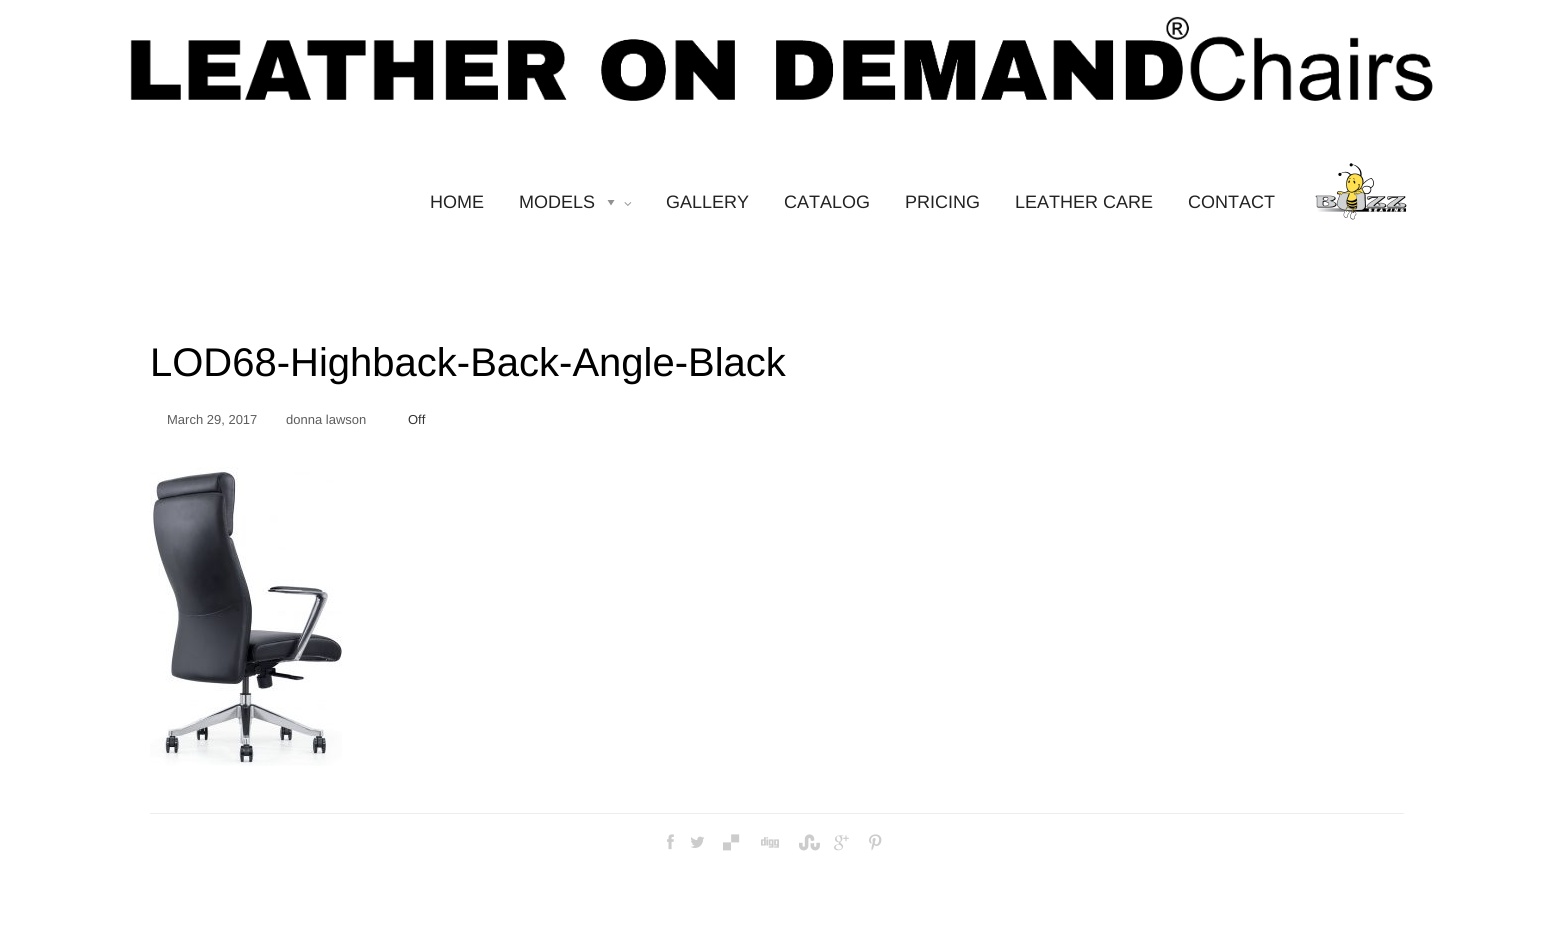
#include <cairo.h>
#include <math.h>
#include <stddef.h>

static cairo_t *ctx;

static void use_color(int r, int g, int b) {
    cairo_set_source_rgb(ctx, r / 255.0, g / 255.0, b / 255.0);
}

static void picture(const char *path, double x, double y, double w, double h) {
    cairo_surface_t *image = cairo_image_surface_create_from_png(path);
    cairo_save(ctx);
    cairo_set_source_surface(ctx, image, x, y);
    cairo_rectangle(ctx, x, y, w, h);
    cairo_fill(ctx);
    cairo_restore(ctx);
    cairo_surface_destroy(image);
}

int main(void) {
    cairo_surface_t *surface = cairo_image_surface_create(CAIRO_FORMAT_RGB24, 1554, 926);
    ctx = cairo_create(surface);
    cairo_font_options_t *options = cairo_font_options_create();
    cairo_font_options_set_hint_metrics(options, CAIRO_HINT_METRICS_OFF);
    cairo_font_options_set_hint_style(options, CAIRO_HINT_STYLE_NONE);
    cairo_set_font_options(ctx, options);
    cairo_set_miter_limit(ctx, 4);
    use_color(255, 255, 255);
    cairo_paint(ctx);
    picture("img1.png", 130, 16, 1303, 85);
    cairo_select_font_face(ctx, "Liberation Sans", CAIRO_FONT_SLANT_NORMAL, CAIRO_FONT_WEIGHT_NORMAL);
    cairo_set_font_size(ctx, 18);
    use_color(34, 34, 34);
    cairo_move_to(ctx, 430, 208);
    cairo_show_text(ctx, "HOME");
    cairo_move_to(ctx, 519, 208);
    cairo_show_text(ctx, "MODELS");
    use_color(145, 145, 145);
    cairo_new_path(ctx);
    cairo_move_to(ctx, 614.5, 200);
    cairo_line_to(ctx, 611, 205.5);
    cairo_line_to(ctx, 607.5, 200);
    cairo_close_path(ctx);
    cairo_fill(ctx);
    picture("img2.png", 624, 202, 8, 4);
    use_color(34, 34, 34);
    cairo_move_to(ctx, 666, 208);
    cairo_show_text(ctx, "GALLERY");
    cairo_move_to(ctx, 784, 208);
    cairo_show_text(ctx, "CATALOG");
    cairo_move_to(ctx, 905, 208);
    cairo_show_text(ctx, "PRICING");
    cairo_move_to(ctx, 1015, 208);
    cairo_show_text(ctx, "LEATHER CARE");
    cairo_move_to(ctx, 1188, 208);
    cairo_show_text(ctx, "CONTACT");
    picture("img3.png", 1315, 163, 92, 57);
    cairo_set_font_size(ctx, 40);
    use_color(0, 0, 0);
    cairo_move_to(ctx, 150, 376);
    cairo_show_text(ctx, "LOD68-Highback-Back-Angle-Black");
    cairo_set_font_size(ctx, 13);
    use_color(92, 92, 92);
    cairo_move_to(ctx, 167, 424);
    cairo_show_text(ctx, "March 29, 2017");
    cairo_move_to(ctx, 286, 424);
    cairo_show_text(ctx, "donna lawson");
    use_color(51, 51, 51);
    cairo_move_to(ctx, 408, 424);
    cairo_show_text(ctx, "Off");
    picture("img4.png", 150, 467, 192, 299);
    use_color(237, 237, 237);
    cairo_rectangle(ctx, 150, 813, 1254, 1);
    cairo_fill(ctx);
    picture("img5.png", 667, 834, 7, 16);
    picture("img6.png", 690, 836, 15, 12);
    picture("img7.png", 723, 834, 17, 17);
    picture("img8.png", 761, 837, 18, 11);
    picture("img9.png", 799, 834, 21, 17);
    picture("img10.png", 834, 835, 15, 16);
    picture("img11.png", 869, 834, 13, 17);
    cairo_surface_write_to_png(surface, "result.png");
    cairo_font_options_destroy(options);
    cairo_destroy(ctx);
    cairo_surface_destroy(surface);
    return 0;
}
